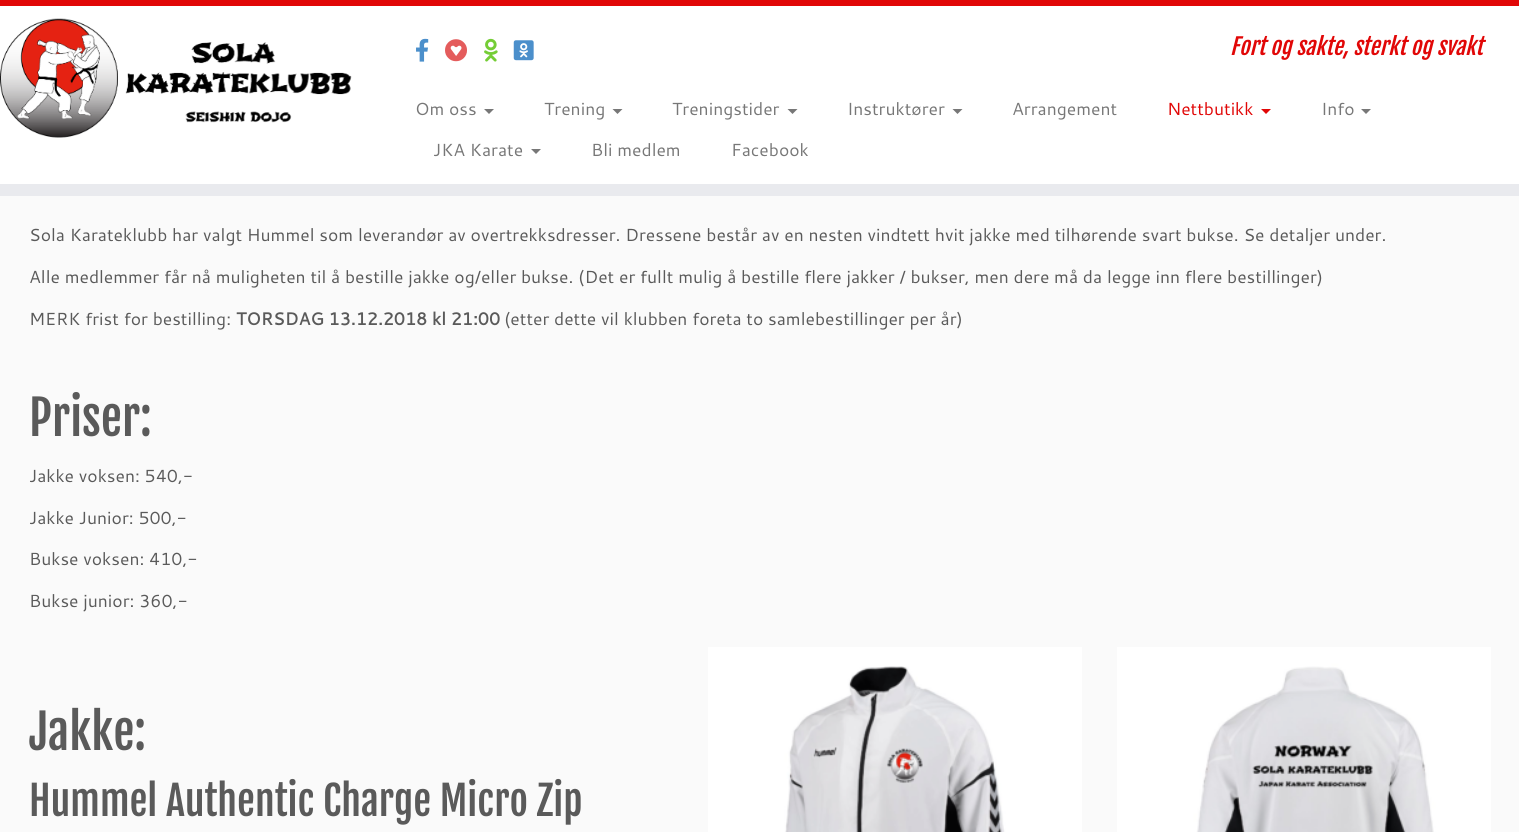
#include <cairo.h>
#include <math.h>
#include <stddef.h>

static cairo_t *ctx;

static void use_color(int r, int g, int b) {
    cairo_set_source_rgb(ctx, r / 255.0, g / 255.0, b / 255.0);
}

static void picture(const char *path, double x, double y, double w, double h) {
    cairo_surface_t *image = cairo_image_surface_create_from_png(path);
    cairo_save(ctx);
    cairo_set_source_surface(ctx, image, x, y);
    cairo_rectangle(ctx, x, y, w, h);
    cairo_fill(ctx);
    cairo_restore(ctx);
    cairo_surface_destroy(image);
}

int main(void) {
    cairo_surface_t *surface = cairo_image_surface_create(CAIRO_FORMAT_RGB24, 1519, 832);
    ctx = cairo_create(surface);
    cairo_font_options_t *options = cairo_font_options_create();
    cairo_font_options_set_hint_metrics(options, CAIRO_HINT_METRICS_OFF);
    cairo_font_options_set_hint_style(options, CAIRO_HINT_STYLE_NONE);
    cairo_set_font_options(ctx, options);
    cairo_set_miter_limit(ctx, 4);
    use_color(250, 250, 250);
    cairo_paint(ctx);
    use_color(255, 255, 255);
    cairo_rectangle(ctx, 0, 6, 1519, 178);
    cairo_fill(ctx);
    use_color(225, 7, 7);
    cairo_rectangle(ctx, 0, 0, 1519, 6);
    cairo_fill(ctx);
    use_color(233, 234, 238);
    cairo_rectangle(ctx, 0, 184, 1519, 12);
    cairo_fill(ctx);
    picture("img1.png", 0, 18, 352, 120);
    picture("img2.png", 416, 38, 13, 24);
    picture("img3.png", 445, 39, 22, 23);
    picture("img4.png", 484, 38, 14, 24);
    picture("img5.png", 513, 40, 21, 21);
    cairo_select_font_face(ctx, "Fjalla One", CAIRO_FONT_SLANT_ITALIC, CAIRO_FONT_WEIGHT_NORMAL);
    cairo_set_font_size(ctx, 22.5);
    use_color(225, 7, 7);
    cairo_move_to(ctx, 1230, 55);
    cairo_show_text(ctx, "Fort og sakte, sterkt og svakt");
    cairo_select_font_face(ctx, "Cantarell", CAIRO_FONT_SLANT_NORMAL, CAIRO_FONT_WEIGHT_NORMAL);
    cairo_set_font_size(ctx, 17.5);
    use_color(119, 119, 119);
    cairo_move_to(ctx, 415, 115);
    cairo_show_text(ctx, "Om oss");
    cairo_new_path(ctx);
    cairo_move_to(ctx, 484, 109);
    cairo_line_to(ctx, 494, 109);
    cairo_line_to(ctx, 489, 114);
    cairo_close_path(ctx);
    cairo_fill(ctx);
    cairo_move_to(ctx, 544, 115);
    cairo_show_text(ctx, "Trening");
    cairo_new_path(ctx);
    cairo_move_to(ctx, 612.5, 109);
    cairo_line_to(ctx, 622.5, 109);
    cairo_line_to(ctx, 617.5, 114);
    cairo_close_path(ctx);
    cairo_fill(ctx);
    cairo_move_to(ctx, 672, 115);
    cairo_show_text(ctx, "Treningstider");
    cairo_new_path(ctx);
    cairo_move_to(ctx, 787.5, 109);
    cairo_line_to(ctx, 797.5, 109);
    cairo_line_to(ctx, 792.5, 114);
    cairo_close_path(ctx);
    cairo_fill(ctx);
    cairo_move_to(ctx, 847, 115);
    cairo_show_text(ctx, "Instruktører");
    cairo_new_path(ctx);
    cairo_move_to(ctx, 952.5, 109);
    cairo_line_to(ctx, 962.5, 109);
    cairo_line_to(ctx, 957.5, 114);
    cairo_close_path(ctx);
    cairo_fill(ctx);
    cairo_move_to(ctx, 1012, 115);
    cairo_show_text(ctx, "Arrangement");
    use_color(225, 7, 7);
    cairo_move_to(ctx, 1167, 115);
    cairo_show_text(ctx, "Nettbutikk");
    cairo_new_path(ctx);
    cairo_move_to(ctx, 1261, 109);
    cairo_line_to(ctx, 1271, 109);
    cairo_line_to(ctx, 1266, 114);
    cairo_close_path(ctx);
    cairo_fill(ctx);
    use_color(119, 119, 119);
    cairo_move_to(ctx, 1321, 115);
    cairo_show_text(ctx, "Info");
    cairo_new_path(ctx);
    cairo_move_to(ctx, 1361, 109);
    cairo_line_to(ctx, 1371, 109);
    cairo_line_to(ctx, 1366, 114);
    cairo_close_path(ctx);
    cairo_fill(ctx);
    cairo_move_to(ctx, 433, 156);
    cairo_show_text(ctx, "JKA Karate");
    cairo_new_path(ctx);
    cairo_move_to(ctx, 531, 149);
    cairo_line_to(ctx, 541, 149);
    cairo_line_to(ctx, 536, 154);
    cairo_close_path(ctx);
    cairo_fill(ctx);
    cairo_move_to(ctx, 591, 156);
    cairo_show_text(ctx, "Bli medlem");
    cairo_move_to(ctx, 731, 156);
    cairo_show_text(ctx, "Facebook");
    use_color(90, 90, 90);
    cairo_move_to(ctx, 29, 241);
    cairo_show_text(ctx, "Sola Karateklubb har valgt Hummel som leverandør av overtrekksdresser. Dressene består av en nesten vindtett hvit jakke med tilhørende svart bukse. Se detaljer under.");
    cairo_move_to(ctx, 29, 283);
    cairo_show_text(ctx, "Alle medlemmer får nå muligheten til å bestille jakke og/eller bukse. (Det er fullt mulig å bestille flere jakker / bukser, men dere må da legge inn flere bestillinger)");
    cairo_move_to(ctx, 29, 325);
    cairo_show_text(ctx, "MERK frist for bestilling:");
    cairo_select_font_face(ctx, "Cantarell", CAIRO_FONT_SLANT_NORMAL, CAIRO_FONT_WEIGHT_BOLD);
    cairo_move_to(ctx, 236, 325);
    cairo_show_text(ctx, "TORSDAG 13.12.2018 kl 21:00");
    cairo_select_font_face(ctx, "Cantarell", CAIRO_FONT_SLANT_NORMAL, CAIRO_FONT_WEIGHT_NORMAL);
    cairo_move_to(ctx, 504, 325);
    cairo_show_text(ctx, "(etter dette vil klubben foreta to samlebestillinger per år)");
    cairo_select_font_face(ctx, "Fjalla One", CAIRO_FONT_SLANT_NORMAL, CAIRO_FONT_WEIGHT_NORMAL);
    cairo_set_font_size(ctx, 47.5);
    cairo_move_to(ctx, 29, 436);
    cairo_show_text(ctx, "Priser:");
    cairo_select_font_face(ctx, "Cantarell", CAIRO_FONT_SLANT_NORMAL, CAIRO_FONT_WEIGHT_NORMAL);
    cairo_set_font_size(ctx, 17.5);
    cairo_move_to(ctx, 29, 482);
    cairo_show_text(ctx, "Jakke voksen: 540,-");
    cairo_move_to(ctx, 29, 524);
    cairo_show_text(ctx, "Jakke Junior: 500,-");
    cairo_move_to(ctx, 29, 565);
    cairo_show_text(ctx, "Bukse voksen: 410,-");
    cairo_move_to(ctx, 29, 607);
    cairo_show_text(ctx, "Bukse junior: 360,-");
    cairo_select_font_face(ctx, "Fjalla One", CAIRO_FONT_SLANT_NORMAL, CAIRO_FONT_WEIGHT_NORMAL);
    cairo_set_font_size(ctx, 47.5);
    cairo_move_to(ctx, 29, 750);
    cairo_show_text(ctx, "Jakke:");
    picture("img6.png", 708, 647, 374, 185);
    picture("img7.png", 1117, 647, 374, 185);
    cairo_set_font_size(ctx, 40);
    cairo_move_to(ctx, 29, 816);
    cairo_show_text(ctx, "Hummel Authentic Charge Micro Zip");
    cairo_surface_write_to_png(surface, "result.png");
    cairo_font_options_destroy(options);
    cairo_destroy(ctx);
    cairo_surface_destroy(surface);
    return 0;
}
